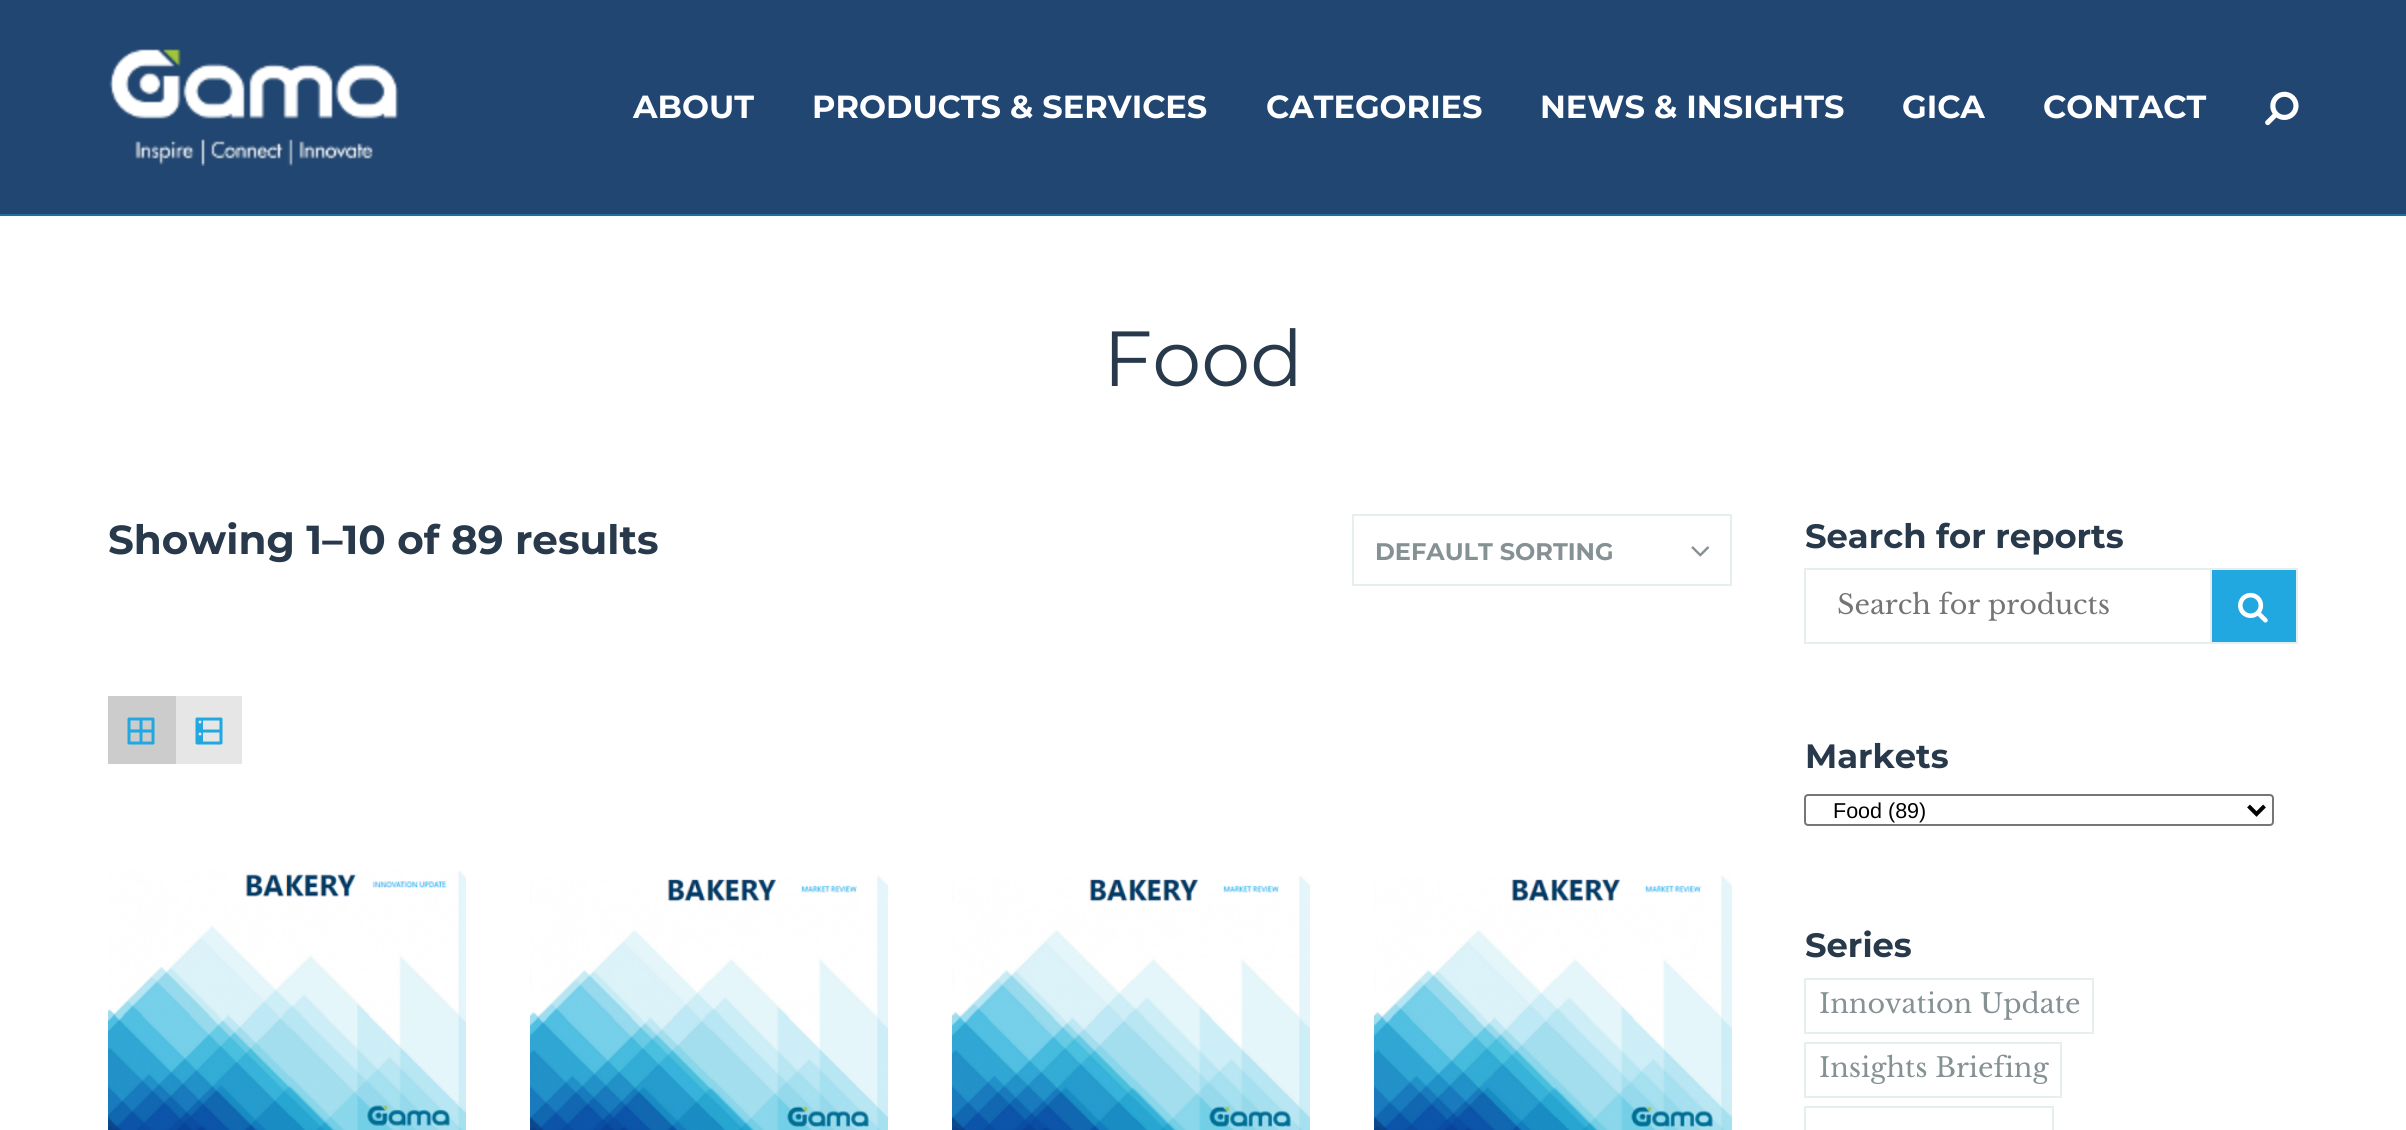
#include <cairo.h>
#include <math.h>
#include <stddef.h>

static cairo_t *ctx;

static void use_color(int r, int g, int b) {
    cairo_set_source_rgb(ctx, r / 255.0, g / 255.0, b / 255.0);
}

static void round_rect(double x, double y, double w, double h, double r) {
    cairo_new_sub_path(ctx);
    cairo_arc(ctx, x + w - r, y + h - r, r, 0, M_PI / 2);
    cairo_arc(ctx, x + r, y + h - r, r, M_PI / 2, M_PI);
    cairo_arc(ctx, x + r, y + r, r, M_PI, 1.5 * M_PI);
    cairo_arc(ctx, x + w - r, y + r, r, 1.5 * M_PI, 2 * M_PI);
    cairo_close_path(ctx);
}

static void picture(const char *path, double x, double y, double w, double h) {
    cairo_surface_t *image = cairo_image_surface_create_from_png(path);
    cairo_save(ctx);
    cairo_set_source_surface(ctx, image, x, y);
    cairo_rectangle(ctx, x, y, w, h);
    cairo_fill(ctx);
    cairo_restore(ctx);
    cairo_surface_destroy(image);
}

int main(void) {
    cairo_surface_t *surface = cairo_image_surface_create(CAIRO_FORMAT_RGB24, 2406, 1130);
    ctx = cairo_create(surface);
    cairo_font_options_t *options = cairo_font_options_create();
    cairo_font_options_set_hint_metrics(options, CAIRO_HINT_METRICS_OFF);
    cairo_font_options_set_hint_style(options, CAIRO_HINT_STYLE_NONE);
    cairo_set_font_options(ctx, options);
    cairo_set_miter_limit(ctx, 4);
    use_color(255, 255, 255);
    cairo_paint(ctx);
    use_color(33, 70, 113);
    cairo_rectangle(ctx, 0, 0, 2406, 214);
    cairo_fill(ctx);
    use_color(30, 114, 153);
    cairo_rectangle(ctx, 0, 214, 2406, 2);
    cairo_fill(ctx);
    picture("img1.png", 109, 49, 290, 117);
    cairo_select_font_face(ctx, "Montserrat", CAIRO_FONT_SLANT_NORMAL, CAIRO_FONT_WEIGHT_BOLD);
    cairo_set_font_size(ctx, 32);
    use_color(255, 255, 255);
    cairo_move_to(ctx, 633, 118);
    cairo_show_text(ctx, "ABOUT");
    cairo_move_to(ctx, 812, 118);
    cairo_show_text(ctx, "PRODUCTS & SERVICES");
    cairo_move_to(ctx, 1266, 118);
    cairo_show_text(ctx, "CATEGORIES");
    cairo_move_to(ctx, 1540, 118);
    cairo_show_text(ctx, "NEWS & INSIGHTS");
    cairo_move_to(ctx, 1902, 118);
    cairo_show_text(ctx, "GICA");
    cairo_move_to(ctx, 2043, 118);
    cairo_show_text(ctx, "CONTACT");
    picture("img2.png", 2265, 91, 34, 35);
    cairo_select_font_face(ctx, "Montserrat", CAIRO_FONT_SLANT_NORMAL, CAIRO_FONT_WEIGHT_NORMAL);
    cairo_set_font_size(ctx, 78);
    use_color(39, 57, 74);
    cairo_move_to(ctx, 1103, 386);
    cairo_show_text(ctx, "Food");
    cairo_select_font_face(ctx, "Montserrat", CAIRO_FONT_SLANT_NORMAL, CAIRO_FONT_WEIGHT_BOLD);
    cairo_set_font_size(ctx, 40.5);
    cairo_move_to(ctx, 108, 554);
    cairo_show_text(ctx, "Showing 1–10 of 89 results");
    cairo_rectangle(ctx, 1353, 515, 378, 70);
    use_color(231, 238, 240);
    cairo_stroke(ctx);
    cairo_set_font_size(ctx, 24);
    use_color(134, 145, 148);
    cairo_move_to(ctx, 1375, 560);
    cairo_show_text(ctx, "DEFAULT SORTING");
    picture("img3.png", 1691, 546, 19, 11);
    use_color(204, 204, 204);
    cairo_rectangle(ctx, 108, 696, 68, 68);
    cairo_fill(ctx);
    picture("img4.png", 127, 717, 28, 28);
    use_color(230, 230, 230);
    cairo_rectangle(ctx, 176, 696, 66, 68);
    cairo_fill(ctx);
    picture("img5.png", 195, 717, 28, 28);
    picture("img6.png", 108, 870, 358, 260);
    picture("img7.png", 530, 875, 358, 255);
    picture("img7.png", 952, 875, 358, 255);
    picture("img7.png", 1374, 875, 358, 255);
    cairo_set_font_size(ctx, 33.75);
    use_color(39, 57, 74);
    cairo_move_to(ctx, 1805, 548);
    cairo_show_text(ctx, "Search for reports");
    cairo_rectangle(ctx, 1805, 569, 492, 74);
    use_color(231, 238, 240);
    cairo_stroke(ctx);
    use_color(34, 168, 224);
    cairo_rectangle(ctx, 2212, 570, 84, 72);
    cairo_fill(ctx);
    picture("img8.png", 2238, 592, 30, 31);
    cairo_rectangle(ctx, 2211, 569, 86, 74);
    use_color(231, 238, 240);
    cairo_stroke(ctx);
    cairo_select_font_face(ctx, "Libre Baskerville", CAIRO_FONT_SLANT_NORMAL, CAIRO_FONT_WEIGHT_NORMAL);
    cairo_set_font_size(ctx, 27);
    use_color(117, 117, 117);
    cairo_move_to(ctx, 1837, 614);
    cairo_show_text(ctx, "Search for products");
    cairo_select_font_face(ctx, "Montserrat", CAIRO_FONT_SLANT_NORMAL, CAIRO_FONT_WEIGHT_BOLD);
    cairo_set_font_size(ctx, 33.75);
    use_color(39, 57, 74);
    cairo_move_to(ctx, 1805, 768);
    cairo_show_text(ctx, "Markets");
    round_rect(1805, 795, 468, 30, 3);
    use_color(118, 118, 118);
    cairo_stroke(ctx);
    cairo_new_path(ctx);
    cairo_move_to(ctx, 2248.5, 806);
    cairo_line_to(ctx, 2256.5, 814);
    cairo_line_to(ctx, 2264.5, 806);
    use_color(0, 0, 0);
    cairo_set_line_width(ctx, 4);
    cairo_stroke(ctx);
    cairo_select_font_face(ctx, "Liberation Sans", CAIRO_FONT_SLANT_NORMAL, CAIRO_FONT_WEIGHT_NORMAL);
    cairo_set_font_size(ctx, 21.5);
    cairo_move_to(ctx, 1833, 818);
    cairo_show_text(ctx, "Food (89)");
    cairo_select_font_face(ctx, "Montserrat", CAIRO_FONT_SLANT_NORMAL, CAIRO_FONT_WEIGHT_BOLD);
    cairo_set_font_size(ctx, 33.75);
    use_color(39, 57, 74);
    cairo_move_to(ctx, 1805, 957);
    cairo_show_text(ctx, "Series");
    cairo_rectangle(ctx, 1805, 979, 288, 54);
    use_color(231, 238, 240);
    cairo_set_line_width(ctx, 2);
    cairo_stroke(ctx);
    cairo_select_font_face(ctx, "Libre Baskerville", CAIRO_FONT_SLANT_NORMAL, CAIRO_FONT_WEIGHT_NORMAL);
    cairo_set_font_size(ctx, 27);
    use_color(134, 145, 148);
    cairo_move_to(ctx, 1819, 1013);
    cairo_show_text(ctx, "Innovation Update");
    cairo_rectangle(ctx, 1805, 1043, 256, 54);
    use_color(231, 238, 240);
    cairo_stroke(ctx);
    use_color(134, 145, 148);
    cairo_move_to(ctx, 1819, 1077);
    cairo_show_text(ctx, "Insights Briefing");
    cairo_rectangle(ctx, 1805, 1107, 248, 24);
    use_color(231, 238, 240);
    cairo_stroke(ctx);
    cairo_surface_write_to_png(surface, "result.png");
    cairo_font_options_destroy(options);
    cairo_destroy(ctx);
    cairo_surface_destroy(surface);
    return 0;
}
